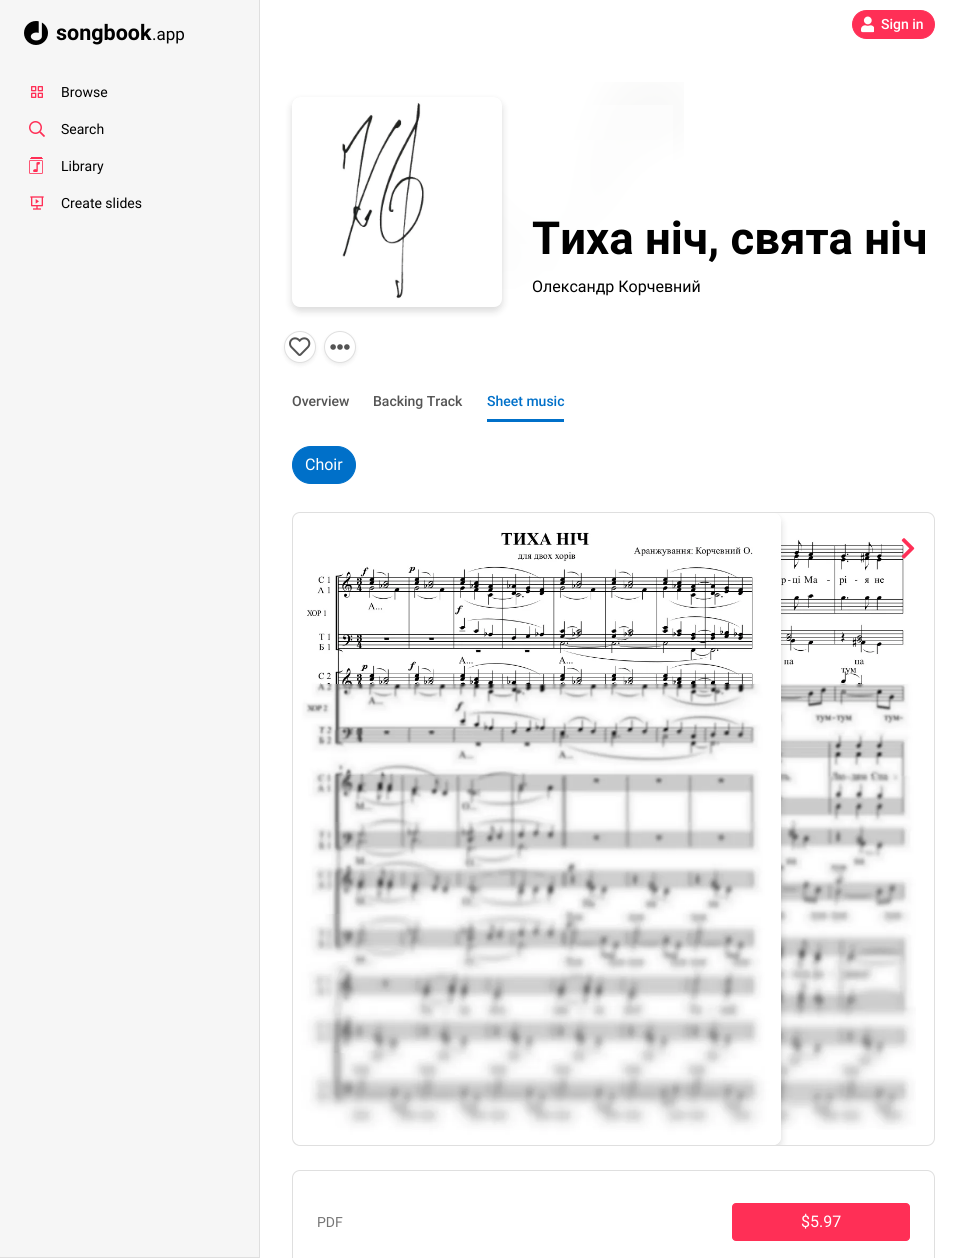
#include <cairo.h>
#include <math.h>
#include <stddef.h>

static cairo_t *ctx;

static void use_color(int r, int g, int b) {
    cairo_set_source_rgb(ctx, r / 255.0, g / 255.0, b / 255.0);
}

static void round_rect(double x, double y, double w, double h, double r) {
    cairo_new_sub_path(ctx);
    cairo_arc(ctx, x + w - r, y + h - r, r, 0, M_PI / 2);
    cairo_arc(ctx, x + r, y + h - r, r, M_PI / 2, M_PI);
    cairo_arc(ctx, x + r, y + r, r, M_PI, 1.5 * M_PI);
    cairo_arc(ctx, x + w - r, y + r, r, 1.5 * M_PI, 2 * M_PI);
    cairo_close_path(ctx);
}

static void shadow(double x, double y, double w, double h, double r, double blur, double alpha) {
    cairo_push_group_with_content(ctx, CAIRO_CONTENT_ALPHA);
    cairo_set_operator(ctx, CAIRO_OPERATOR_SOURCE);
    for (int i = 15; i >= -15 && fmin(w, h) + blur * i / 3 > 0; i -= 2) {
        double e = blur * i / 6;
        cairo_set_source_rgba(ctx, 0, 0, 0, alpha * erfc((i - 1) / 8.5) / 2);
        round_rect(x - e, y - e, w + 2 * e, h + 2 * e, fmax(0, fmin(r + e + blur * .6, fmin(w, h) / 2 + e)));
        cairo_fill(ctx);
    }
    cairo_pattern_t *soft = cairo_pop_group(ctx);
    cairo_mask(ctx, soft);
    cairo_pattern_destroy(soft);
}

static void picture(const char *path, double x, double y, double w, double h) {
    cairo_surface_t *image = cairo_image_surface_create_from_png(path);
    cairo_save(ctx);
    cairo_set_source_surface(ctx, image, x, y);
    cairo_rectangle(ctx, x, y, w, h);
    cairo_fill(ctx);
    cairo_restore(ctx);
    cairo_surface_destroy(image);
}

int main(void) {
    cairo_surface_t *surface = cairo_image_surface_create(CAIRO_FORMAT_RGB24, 967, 1258);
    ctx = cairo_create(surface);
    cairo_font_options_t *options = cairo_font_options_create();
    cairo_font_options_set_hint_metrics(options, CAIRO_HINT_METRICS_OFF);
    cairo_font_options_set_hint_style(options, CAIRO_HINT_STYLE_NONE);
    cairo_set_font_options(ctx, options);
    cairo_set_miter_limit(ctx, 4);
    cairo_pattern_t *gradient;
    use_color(255, 255, 255);
    cairo_paint(ctx);
    use_color(246, 246, 246);
    cairo_rectangle(ctx, 0, 0, 259, 1257);
    cairo_fill(ctx);
    use_color(223, 223, 223);
    cairo_rectangle(ctx, 259, 0, 1, 1258);
    cairo_fill(ctx);
    cairo_rectangle(ctx, 0, 1257, 260, 1);
    cairo_fill(ctx);
    picture("img1.png", 24, 21, 24, 24);
    cairo_select_font_face(ctx, "Roboto", CAIRO_FONT_SLANT_NORMAL, CAIRO_FONT_WEIGHT_BOLD);
    cairo_set_font_size(ctx, 21.5);
    use_color(0, 0, 0);
    cairo_move_to(ctx, 56, 40);
    cairo_show_text(ctx, "songbook");
    cairo_select_font_face(ctx, "Roboto", CAIRO_FONT_SLANT_NORMAL, CAIRO_FONT_WEIGHT_NORMAL);
    cairo_set_font_size(ctx, 17);
    cairo_move_to(ctx, 152, 40);
    cairo_show_text(ctx, ".app");
    picture("img2.png", 31, 86, 12, 12);
    cairo_set_font_size(ctx, 14);
    cairo_move_to(ctx, 61, 97);
    cairo_show_text(ctx, "Browse");
    picture("img3.png", 29, 121, 16, 16);
    cairo_move_to(ctx, 61, 134);
    cairo_show_text(ctx, "Search");
    use_color(255, 47, 86);
    cairo_rectangle(ctx, 31, 157, 11, 1);
    cairo_fill(ctx);
    round_rect(30, 158, 13, 1, 0.5);
    cairo_fill(ctx);
    round_rect(29.4, 160.4, 13.2, 13.2, 1.1);
    cairo_set_line_width(ctx, 0.8);
    cairo_stroke(ctx);
    picture("img4.png", 33, 162, 7, 10);
    use_color(0, 0, 0);
    cairo_move_to(ctx, 61, 171);
    cairo_show_text(ctx, "Library");
    picture("img5.png", 30, 196, 14, 14);
    cairo_move_to(ctx, 61, 208);
    cairo_show_text(ctx, "Create slides");
    use_color(255, 47, 86);
    round_rect(852.5, 10.5, 82, 28, 14);
    cairo_fill_preserve(ctx);
    cairo_set_line_width(ctx, 1);
    cairo_stroke(ctx);
    picture("img6.png", 861, 16, 13, 17);
    cairo_select_font_face(ctx, "Roboto Medium", CAIRO_FONT_SLANT_NORMAL, CAIRO_FONT_WEIGHT_NORMAL);
    use_color(255, 255, 255);
    cairo_move_to(ctx, 881, 29);
    cairo_show_text(ctx, "Sign in");
    picture("img7.png", 453, 82, 231, 207);
    gradient = cairo_pattern_create_linear(614, -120, 614, 400);
    cairo_pattern_add_color_stop_rgba(gradient, 0, 1, 1, 1, 0);
    cairo_pattern_add_color_stop_rgba(gradient, 1, 1, 1, 1, 1);
    cairo_set_source(ctx, gradient);
    cairo_pattern_destroy(gradient);
    cairo_rectangle(ctx, 453, 105, 220, 184);
    cairo_fill(ctx);
    use_color(0, 0, 0);
    shadow(292, 101, 210, 210, 8, 4, 0.15);
    use_color(246, 246, 246);
    round_rect(292, 97, 210, 210, 8);
    cairo_fill(ctx);
    picture("img8.png", 292, 97, 210, 210);
    cairo_select_font_face(ctx, "Roboto", CAIRO_FONT_SLANT_NORMAL, CAIRO_FONT_WEIGHT_BOLD);
    cairo_set_font_size(ctx, 45.5);
    use_color(0, 0, 0);
    cairo_move_to(ctx, 532, 254);
    cairo_show_text(ctx, "Тиха ніч, свята ніч");
    cairo_select_font_face(ctx, "Roboto", CAIRO_FONT_SLANT_NORMAL, CAIRO_FONT_WEIGHT_NORMAL);
    cairo_set_font_size(ctx, 16);
    cairo_move_to(ctx, 532, 292);
    cairo_show_text(ctx, "Олександр Корчевний");
    use_color(0, 0, 0);
    shadow(284, 333, 32, 32, 16, 2, 0.07);
    use_color(255, 255, 255);
    cairo_arc(ctx, 300, 347, 15.5, 0, 2 * M_PI);
    cairo_fill_preserve(ctx);
    use_color(223, 223, 223);
    cairo_stroke(ctx);
    picture("img9.png", 289, 337, 22, 19);
    use_color(0, 0, 0);
    shadow(324, 333, 32, 32, 16, 2, 0.07);
    use_color(255, 255, 255);
    cairo_arc(ctx, 340, 347, 15.5, 0, 2 * M_PI);
    cairo_fill_preserve(ctx);
    use_color(223, 223, 223);
    cairo_stroke(ctx);
    picture("img10.png", 330, 344, 20, 6);
    cairo_select_font_face(ctx, "Roboto Medium", CAIRO_FONT_SLANT_NORMAL, CAIRO_FONT_WEIGHT_NORMAL);
    cairo_set_font_size(ctx, 14);
    use_color(84, 84, 84);
    cairo_move_to(ctx, 292, 406);
    cairo_show_text(ctx, "Overview");
    cairo_move_to(ctx, 373, 406);
    cairo_show_text(ctx, "Backing Track");
    use_color(0, 112, 201);
    cairo_move_to(ctx, 487, 406);
    cairo_show_text(ctx, "Sheet music");
    cairo_rectangle(ctx, 487, 419, 77, 3);
    cairo_fill(ctx);
    round_rect(292.5, 446.5, 63, 37, 18.5);
    cairo_fill_preserve(ctx);
    cairo_stroke(ctx);
    cairo_select_font_face(ctx, "Roboto", CAIRO_FONT_SLANT_NORMAL, CAIRO_FONT_WEIGHT_NORMAL);
    cairo_set_font_size(ctx, 16);
    use_color(255, 255, 255);
    cairo_move_to(ctx, 305, 470);
    cairo_show_text(ctx, "Choir");
    round_rect(292.5, 512.5, 642, 633, 7.5);
    use_color(223, 223, 223);
    cairo_stroke(ctx);
    picture("img12.png", 781, 524, 135, 606);
    cairo_save(ctx);
    round_rect(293, 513, 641, 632, 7);
    cairo_clip(ctx);
    cairo_set_fill_rule(ctx, CAIRO_FILL_RULE_EVEN_ODD);
    cairo_new_path(ctx);
    cairo_move_to(ctx, 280, 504);
    cairo_line_to(ctx, 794, 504);
    cairo_line_to(ctx, 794, 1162);
    cairo_line_to(ctx, 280, 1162);
    cairo_close_path(ctx);
    cairo_move_to(ctx, 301, 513);
    cairo_line_to(ctx, 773, 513);
    cairo_curve_to(ctx, 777.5, 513, 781, 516.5, 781, 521);
    cairo_line_to(ctx, 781, 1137);
    cairo_curve_to(ctx, 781, 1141.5, 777.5, 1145, 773, 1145);
    cairo_line_to(ctx, 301, 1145);
    cairo_curve_to(ctx, 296.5, 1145, 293, 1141.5, 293, 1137);
    cairo_line_to(ctx, 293, 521);
    cairo_curve_to(ctx, 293, 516.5, 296.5, 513, 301, 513);
    cairo_close_path(ctx);
    cairo_clip(ctx);
    use_color(0, 0, 0);
    shadow(293, 517, 488, 632, 8, 4, 0.15);
    cairo_restore(ctx);
    picture("img11.png", 293, 524, 488, 621);
    picture("img13.png", 901, 538, 14, 21);
    round_rect(292.5, 1170.5, 642, 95, 7.5);
    cairo_stroke(ctx);
    cairo_set_font_size(ctx, 14);
    use_color(118, 118, 118);
    cairo_move_to(ctx, 317, 1227);
    cairo_show_text(ctx, "PDF");
    use_color(255, 47, 86);
    round_rect(732.5, 1203.5, 177, 37, 3.5);
    cairo_fill_preserve(ctx);
    cairo_stroke(ctx);
    cairo_set_font_size(ctx, 16);
    use_color(255, 255, 255);
    cairo_move_to(ctx, 801, 1227);
    cairo_show_text(ctx, "$5.97");
    cairo_surface_write_to_png(surface, "result.png");
    cairo_font_options_destroy(options);
    cairo_destroy(ctx);
    cairo_surface_destroy(surface);
    return 0;
}
